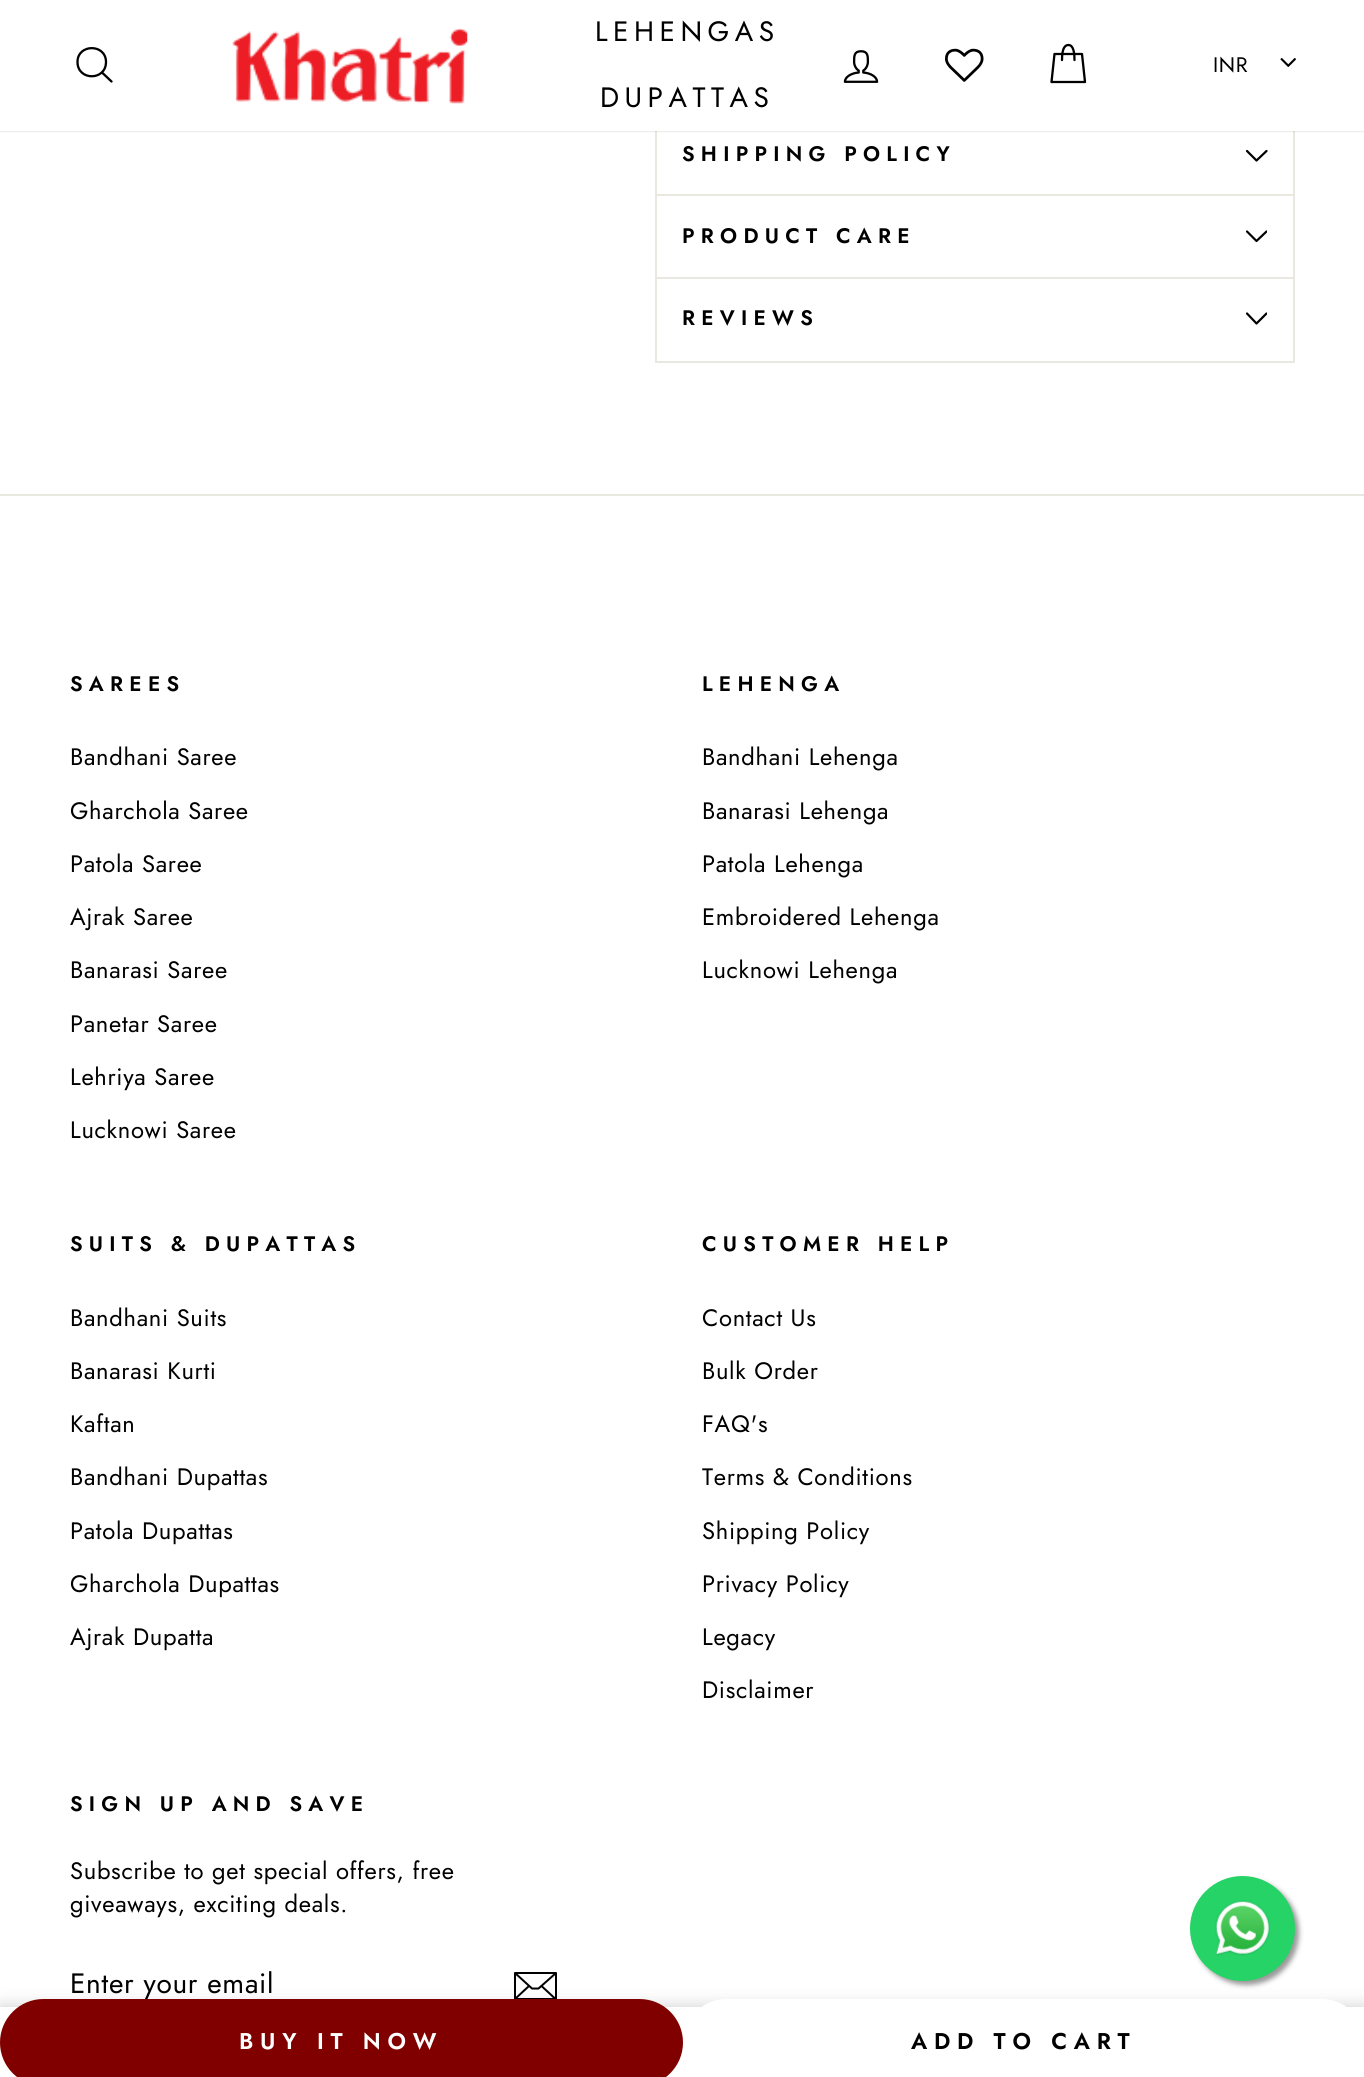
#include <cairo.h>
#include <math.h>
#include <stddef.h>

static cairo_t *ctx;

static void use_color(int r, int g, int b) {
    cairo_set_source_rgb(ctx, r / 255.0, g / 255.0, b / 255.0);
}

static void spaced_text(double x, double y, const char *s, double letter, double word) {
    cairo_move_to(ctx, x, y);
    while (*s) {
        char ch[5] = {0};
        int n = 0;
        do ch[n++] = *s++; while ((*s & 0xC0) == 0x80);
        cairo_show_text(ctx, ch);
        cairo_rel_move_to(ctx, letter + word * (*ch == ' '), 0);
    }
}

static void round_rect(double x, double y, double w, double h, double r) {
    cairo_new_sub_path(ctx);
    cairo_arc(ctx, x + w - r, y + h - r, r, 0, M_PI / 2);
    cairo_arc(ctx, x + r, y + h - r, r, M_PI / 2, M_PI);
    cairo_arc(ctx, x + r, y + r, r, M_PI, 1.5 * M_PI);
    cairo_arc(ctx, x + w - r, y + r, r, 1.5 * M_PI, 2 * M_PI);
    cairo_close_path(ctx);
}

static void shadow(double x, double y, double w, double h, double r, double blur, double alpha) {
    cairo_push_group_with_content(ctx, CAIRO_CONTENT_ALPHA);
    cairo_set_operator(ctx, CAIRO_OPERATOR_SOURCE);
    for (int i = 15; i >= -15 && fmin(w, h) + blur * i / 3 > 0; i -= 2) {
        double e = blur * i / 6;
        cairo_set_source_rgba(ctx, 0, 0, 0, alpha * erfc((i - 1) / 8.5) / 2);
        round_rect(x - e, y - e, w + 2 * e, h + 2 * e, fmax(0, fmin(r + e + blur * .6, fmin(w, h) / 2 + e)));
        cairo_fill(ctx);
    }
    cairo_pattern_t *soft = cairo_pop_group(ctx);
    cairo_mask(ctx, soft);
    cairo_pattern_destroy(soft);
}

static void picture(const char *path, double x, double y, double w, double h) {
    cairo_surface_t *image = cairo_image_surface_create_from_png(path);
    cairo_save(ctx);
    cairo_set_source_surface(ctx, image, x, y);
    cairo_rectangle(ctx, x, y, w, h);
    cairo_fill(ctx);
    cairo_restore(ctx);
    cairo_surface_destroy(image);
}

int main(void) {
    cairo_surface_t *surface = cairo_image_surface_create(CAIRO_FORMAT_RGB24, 1364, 2077);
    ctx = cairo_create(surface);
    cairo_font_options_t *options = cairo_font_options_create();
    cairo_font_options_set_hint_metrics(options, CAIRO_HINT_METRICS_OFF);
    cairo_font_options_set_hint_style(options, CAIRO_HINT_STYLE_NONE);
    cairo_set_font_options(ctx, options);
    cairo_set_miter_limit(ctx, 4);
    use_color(255, 255, 255);
    cairo_paint(ctx);
    use_color(232, 232, 225);
    cairo_rectangle(ctx, 1293, 131, 2, 65);
    cairo_fill(ctx);
    cairo_rectangle(ctx, 655, 131, 2, 65);
    cairo_fill(ctx);
    use_color(0, 0, 0);
    shadow(0, 0, 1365, 131, 0, 1, 0.2);
    use_color(255, 255, 255);
    cairo_rectangle(ctx, 0, 0, 1364, 131);
    cairo_fill(ctx);
    cairo_new_path(ctx);
    cairo_move_to(ctx, 106, 62);
    cairo_curve_to(ctx, 106, 81, 77.5, 81, 77.5, 62);
    cairo_curve_to(ctx, 77.5, 43.5, 106, 43.5, 106, 62);
    cairo_close_path(ctx);
    cairo_move_to(ctx, 111.5, 81.5);
    cairo_line_to(ctx, 102, 72.5);
    use_color(0, 0, 0);
    cairo_set_line_width(ctx, 2.3);
    cairo_set_line_cap(ctx, CAIRO_LINE_CAP_ROUND);
    cairo_set_line_join(ctx, CAIRO_LINE_JOIN_ROUND);
    cairo_stroke(ctx);
    picture("img1.png", 232, 28, 236, 76);
    cairo_select_font_face(ctx, "Jost", CAIRO_FONT_SLANT_NORMAL, CAIRO_FONT_WEIGHT_NORMAL);
    cairo_set_font_size(ctx, 28);
    spaced_text(595, 41, "LEHENGAS", 5.5, 0);
    spaced_text(600, 107, "DUPATTAS", 5.5, 0);
    picture("img2.png", 843, 50, 36, 33);
    picture("img3.png", 945, 48, 39, 34);
    cairo_new_path(ctx);
    cairo_move_to(ctx, 1062, 60);
    cairo_curve_to(ctx, 1062, 48, 1065, 45, 1068.5, 45);
    cairo_curve_to(ctx, 1071.5, 45, 1074.5, 48, 1074.5, 60);
    cairo_move_to(ctx, 1054.5, 54);
    cairo_line_to(ctx, 1082, 54);
    cairo_line_to(ctx, 1085, 82);
    cairo_line_to(ctx, 1051.5, 82);
    cairo_close_path(ctx);
    cairo_stroke(ctx);
    cairo_set_font_size(ctx, 21);
    spaced_text(1213, 72, "INR", 0.7, 0);
    picture("img4.png", 1280, 58, 16, 9);
    use_color(232, 232, 225);
    cairo_rectangle(ctx, 655, 361, 640, 2);
    cairo_fill(ctx);
    cairo_select_font_face(ctx, "Jost SemiBold", CAIRO_FONT_SLANT_NORMAL, CAIRO_FONT_WEIGHT_NORMAL);
    use_color(0, 0, 0);
    spaced_text(682, 161, "SHIPPING POLICY", 6.25, 0);
    cairo_new_path(ctx);
    cairo_move_to(ctx, 1247, 151);
    cairo_line_to(ctx, 1256.5, 160.5);
    cairo_line_to(ctx, 1266.5, 151);
    cairo_set_line_width(ctx, 2.2);
    cairo_stroke(ctx);
    use_color(232, 232, 225);
    cairo_rectangle(ctx, 655, 194, 640, 2);
    cairo_fill(ctx);
    cairo_rectangle(ctx, 1293, 194, 2, 84);
    cairo_fill(ctx);
    cairo_rectangle(ctx, 655, 194, 2, 84);
    cairo_fill(ctx);
    use_color(0, 0, 0);
    spaced_text(682, 243, "PRODUCT CARE", 6.25, 0);
    cairo_save(ctx);
    cairo_rectangle(ctx, 1246, 226, 21, 21);
    cairo_clip(ctx);
    cairo_new_path(ctx);
    cairo_move_to(ctx, 1247, 231.5);
    cairo_line_to(ctx, 1256.5, 241);
    cairo_line_to(ctx, 1266.5, 231.5);
    cairo_stroke(ctx);
    cairo_restore(ctx);
    use_color(232, 232, 225);
    cairo_rectangle(ctx, 655, 277, 640, 2);
    cairo_fill(ctx);
    cairo_rectangle(ctx, 1293, 277, 2, 84);
    cairo_fill(ctx);
    cairo_rectangle(ctx, 655, 277, 2, 84);
    cairo_fill(ctx);
    use_color(0, 0, 0);
    spaced_text(682, 325, "REVIEWS", 6.25, 0);
    cairo_save(ctx);
    cairo_rectangle(ctx, 1246, 308, 21, 21);
    cairo_clip(ctx);
    cairo_new_path(ctx);
    cairo_move_to(ctx, 1247, 313.5);
    cairo_line_to(ctx, 1256.5, 323.5);
    cairo_line_to(ctx, 1266.5, 313.5);
    cairo_stroke(ctx);
    cairo_restore(ctx);
    cairo_new_path(ctx);
    cairo_move_to(ctx, 556, 1999);
    cairo_line_to(ctx, 515, 1999);
    cairo_line_to(ctx, 515, 1973);
    cairo_line_to(ctx, 556, 1973);
    cairo_close_path(ctx);
    cairo_move_to(ctx, 515, 1973);
    cairo_line_to(ctx, 532, 1988.5);
    cairo_line_to(ctx, 538.5, 1988.5);
    cairo_line_to(ctx, 556, 1973);
    cairo_move_to(ctx, 529, 1986);
    cairo_line_to(ctx, 515.5, 1998.5);
    cairo_move_to(ctx, 555.5, 1999);
    cairo_line_to(ctx, 541.5, 1986);
    cairo_set_line_width(ctx, 2);
    cairo_stroke(ctx);
    cairo_save(ctx);
    cairo_set_fill_rule(ctx, CAIRO_FILL_RULE_EVEN_ODD);
    cairo_new_path(ctx);
    cairo_move_to(ctx, 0, 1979);
    cairo_line_to(ctx, 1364, 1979);
    cairo_line_to(ctx, 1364, 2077);
    cairo_line_to(ctx, 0, 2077);
    cairo_close_path(ctx);
    cairo_move_to(ctx, 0, 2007);
    cairo_line_to(ctx, 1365, 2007);
    cairo_line_to(ctx, 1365, 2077);
    cairo_line_to(ctx, 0, 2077);
    cairo_close_path(ctx);
    cairo_clip(ctx);
    use_color(0, 0, 0);
    shadow(0, 2007, 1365, 70, 0, 9, 0.2);
    cairo_restore(ctx);
    cairo_select_font_face(ctx, "Jost", CAIRO_FONT_SLANT_NORMAL, CAIRO_FONT_WEIGHT_NORMAL);
    cairo_set_font_size(ctx, 28);
    spaced_text(70, 1993, "Enter your email", 0.7, 0);
    use_color(128, 0, 0);
    round_rect(0, 1999, 683, 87, 43.5);
    cairo_fill(ctx);
    cairo_select_font_face(ctx, "Jost SemiBold", CAIRO_FONT_SLANT_NORMAL, CAIRO_FONT_WEIGHT_NORMAL);
    cairo_set_font_size(ctx, 22.75);
    use_color(255, 255, 255);
    spaced_text(239, 2049, "BUY IT NOW", 6.75, 0);
    round_rect(683, 1999, 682, 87, 43.5);
    cairo_fill(ctx);
    use_color(0, 0, 0);
    spaced_text(911, 2049, "ADD TO CART", 6.75, 0);
    use_color(153, 153, 153);
    shadow(1194, 1880, 105, 105, 52.5, 2.5, 1);
    use_color(37, 211, 102);
    cairo_arc(ctx, 1242.5, 1928.5, 52.5, 0, 2 * M_PI);
    cairo_fill(ctx);
    picture("img5.png", 1215, 1900, 55, 56);
    use_color(232, 232, 225);
    cairo_rectangle(ctx, 0, 494, 1364, 2);
    cairo_fill(ctx);
    cairo_set_font_size(ctx, 21);
    use_color(0, 0, 0);
    spaced_text(70, 691, "SAREES", 6.25, 0);
    cairo_select_font_face(ctx, "Jost", CAIRO_FONT_SLANT_NORMAL, CAIRO_FONT_WEIGHT_NORMAL);
    cairo_set_font_size(ctx, 23.75);
    spaced_text(70, 765, "Bandhani Saree", 0.7, 0);
    spaced_text(70, 819, "Gharchola Saree", 0.7, 0);
    spaced_text(70, 872, "Patola Saree", 0.7, 0);
    spaced_text(70, 925, "Ajrak Saree", 0.7, 0);
    spaced_text(70, 978, "Banarasi Saree", 0.7, 0);
    spaced_text(70, 1032, "Panetar Saree", 0.7, 0);
    spaced_text(70, 1085, "Lehriya Saree", 0.7, 0);
    spaced_text(70, 1138, "Lucknowi Saree", 0.7, 0);
    cairo_select_font_face(ctx, "Jost SemiBold", CAIRO_FONT_SLANT_NORMAL, CAIRO_FONT_WEIGHT_NORMAL);
    cairo_set_font_size(ctx, 21);
    spaced_text(702, 691, "LEHENGA", 6.25, 0);
    cairo_select_font_face(ctx, "Jost", CAIRO_FONT_SLANT_NORMAL, CAIRO_FONT_WEIGHT_NORMAL);
    cairo_set_font_size(ctx, 23.75);
    spaced_text(702, 765, "Bandhani Lehenga", 0.7, 0);
    spaced_text(702, 819, "Banarasi Lehenga", 0.7, 0);
    spaced_text(702, 872, "Patola Lehenga", 0.7, 0);
    spaced_text(702, 925, "Embroidered Lehenga", 0.7, 0);
    spaced_text(702, 978, "Lucknowi Lehenga", 0.7, 0);
    cairo_select_font_face(ctx, "Jost SemiBold", CAIRO_FONT_SLANT_NORMAL, CAIRO_FONT_WEIGHT_NORMAL);
    cairo_set_font_size(ctx, 21);
    spaced_text(70, 1251, "SUITS & DUPATTAS", 6.25, 0);
    cairo_select_font_face(ctx, "Jost", CAIRO_FONT_SLANT_NORMAL, CAIRO_FONT_WEIGHT_NORMAL);
    cairo_set_font_size(ctx, 23.75);
    spaced_text(70, 1326, "Bandhani Suits", 0.7, 0);
    spaced_text(70, 1379, "Banarasi Kurti", 0.7, 0);
    spaced_text(70, 1432, "Kaftan", 0.7, 0);
    spaced_text(70, 1485, "Bandhani Dupattas", 0.7, 0);
    spaced_text(70, 1539, "Patola Dupattas", 0.7, 0);
    spaced_text(70, 1592, "Gharchola Dupattas", 0.7, 0);
    spaced_text(70, 1645, "Ajrak Dupatta", 0.7, 0);
    cairo_select_font_face(ctx, "Jost SemiBold", CAIRO_FONT_SLANT_NORMAL, CAIRO_FONT_WEIGHT_NORMAL);
    cairo_set_font_size(ctx, 21);
    spaced_text(702, 1251, "CUSTOMER HELP", 6.25, 0);
    cairo_select_font_face(ctx, "Jost", CAIRO_FONT_SLANT_NORMAL, CAIRO_FONT_WEIGHT_NORMAL);
    cairo_set_font_size(ctx, 23.75);
    spaced_text(702, 1326, "Contact Us", 0.7, 0);
    spaced_text(702, 1379, "Bulk Order", 0.7, 0);
    spaced_text(702, 1432, "FAQ's", 0.7, 0);
    spaced_text(702, 1485, "Terms & Conditions", 0.7, 0);
    spaced_text(702, 1539, "Shipping Policy", 0.7, 0);
    spaced_text(702, 1592, "Privacy Policy", 0.7, 0);
    spaced_text(702, 1645, "Legacy", 0.7, 0);
    spaced_text(702, 1698, "Disclaimer", 0.7, 0);
    cairo_select_font_face(ctx, "Jost SemiBold", CAIRO_FONT_SLANT_NORMAL, CAIRO_FONT_WEIGHT_NORMAL);
    cairo_set_font_size(ctx, 21);
    spaced_text(70, 1811, "SIGN UP AND SAVE", 6.25, 0);
    cairo_select_font_face(ctx, "Jost", CAIRO_FONT_SLANT_NORMAL, CAIRO_FONT_WEIGHT_NORMAL);
    cairo_set_font_size(ctx, 23.75);
    spaced_text(70, 1879, "Subscribe to get special offers, free", 0.7, 0);
    spaced_text(70, 1912, "giveaways, exciting deals.", 0.7, 0);
    cairo_surface_write_to_png(surface, "result.png");
    cairo_font_options_destroy(options);
    cairo_destroy(ctx);
    cairo_surface_destroy(surface);
    return 0;
}
